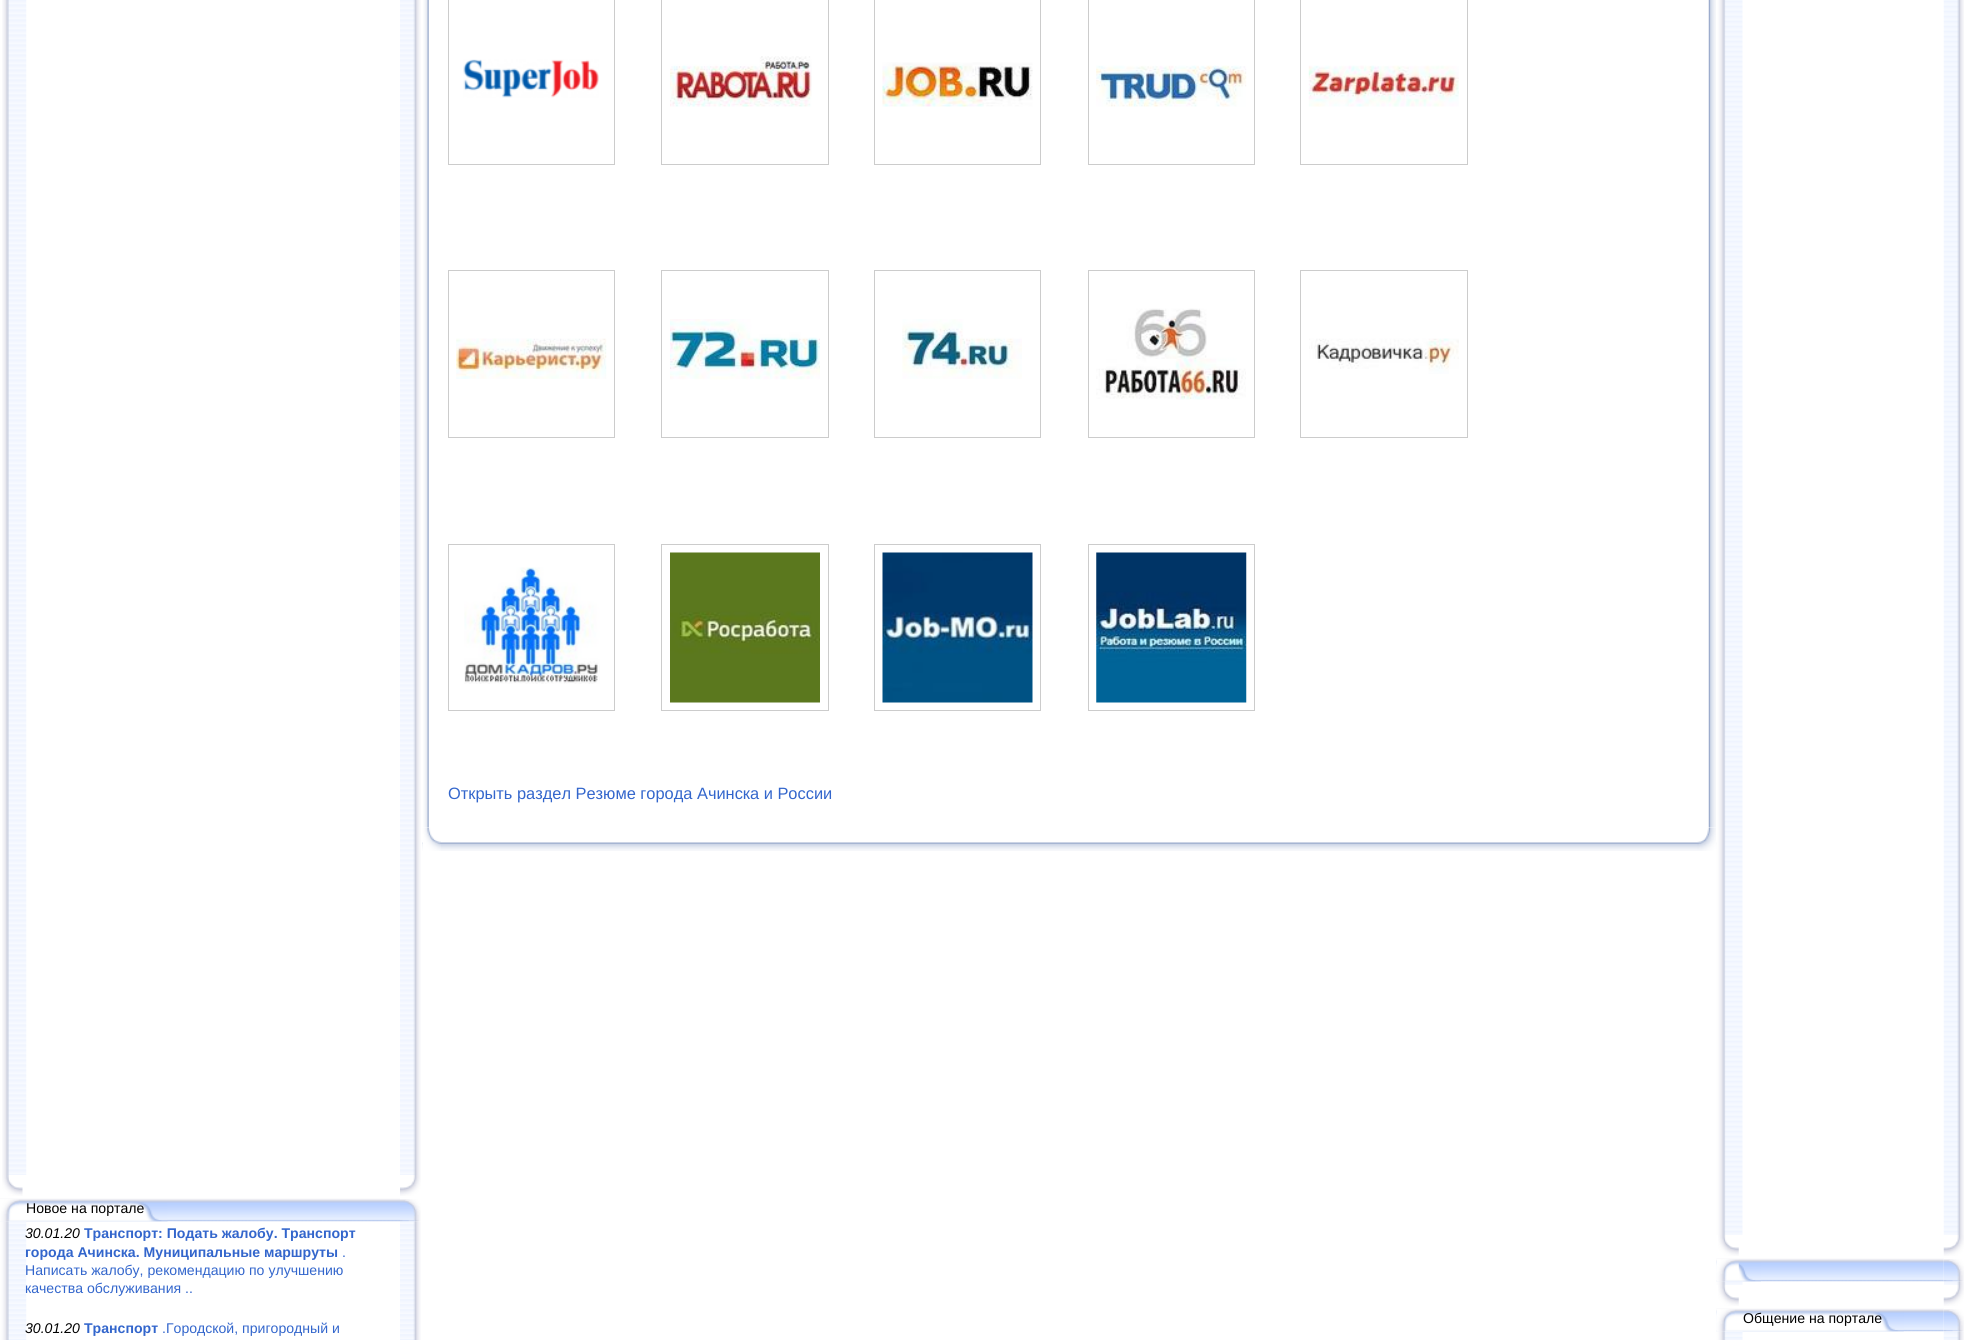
#include <cairo.h>
#include <math.h>
#include <stddef.h>

static cairo_t *ctx;

static void use_color(int r, int g, int b) {
    cairo_set_source_rgb(ctx, r / 255.0, g / 255.0, b / 255.0);
}

static void picture(const char *path, double x, double y, double w, double h) {
    cairo_surface_t *image = cairo_image_surface_create_from_png(path);
    cairo_save(ctx);
    cairo_set_source_surface(ctx, image, x, y);
    cairo_rectangle(ctx, x, y, w, h);
    cairo_fill(ctx);
    cairo_restore(ctx);
    cairo_surface_destroy(image);
}

int main(void) {
    cairo_surface_t *surface = cairo_image_surface_create(CAIRO_FORMAT_RGB24, 1966, 1340);
    ctx = cairo_create(surface);
    cairo_font_options_t *options = cairo_font_options_create();
    cairo_font_options_set_hint_metrics(options, CAIRO_HINT_METRICS_OFF);
    cairo_font_options_set_hint_style(options, CAIRO_HINT_STYLE_NONE);
    cairo_set_font_options(ctx, options);
    cairo_set_miter_limit(ctx, 4);
    use_color(255, 255, 255);
    cairo_paint(ctx);
    picture("img1.png", 423, 0, 6, 828);
    picture("img2.png", 1708, 0, 8, 828);
    cairo_rectangle(ctx, 448.5, -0.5, 166, 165);
    use_color(204, 204, 204);
    cairo_set_line_width(ctx, 1);
    cairo_stroke(ctx);
    picture("img3.png", 463, 59, 136, 39);
    cairo_rectangle(ctx, 661.5, -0.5, 167, 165);
    cairo_stroke(ctx);
    picture("img4.png", 670, 56, 142, 51);
    cairo_rectangle(ctx, 874.5, -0.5, 166, 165);
    cairo_stroke(ctx);
    picture("img5.png", 882, 62, 151, 45);
    cairo_rectangle(ctx, 1088.5, -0.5, 166, 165);
    cairo_stroke(ctx);
    picture("img6.png", 1096, 65, 151, 42);
    cairo_rectangle(ctx, 1300.5, -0.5, 167, 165);
    cairo_stroke(ctx);
    picture("img7.png", 1308, 65, 151, 42);
    cairo_rectangle(ctx, 448.5, 270.5, 166, 167);
    cairo_stroke(ctx);
    picture("img8.png", 456, 338, 151, 41);
    cairo_rectangle(ctx, 661.5, 270.5, 167, 167);
    cairo_stroke(ctx);
    picture("img9.png", 670, 319, 150, 61);
    cairo_rectangle(ctx, 874.5, 270.5, 166, 167);
    cairo_stroke(ctx);
    picture("img10.png", 902, 319, 120, 60);
    cairo_rectangle(ctx, 1088.5, 270.5, 166, 167);
    cairo_stroke(ctx);
    picture("img11.png", 1096, 308, 150, 92);
    cairo_rectangle(ctx, 1300.5, 270.5, 167, 167);
    cairo_stroke(ctx);
    picture("img12.png", 1309, 338, 150, 36);
    cairo_rectangle(ctx, 448.5, 544.5, 166, 166);
    cairo_stroke(ctx);
    picture("img13.png", 464, 567, 136, 117);
    cairo_rectangle(ctx, 661.5, 544.5, 167, 166);
    cairo_stroke(ctx);
    picture("img14.png", 670, 552, 150, 151);
    cairo_rectangle(ctx, 874.5, 544.5, 166, 166);
    cairo_stroke(ctx);
    picture("img15.png", 882, 552, 151, 151);
    cairo_rectangle(ctx, 1088.5, 544.5, 166, 166);
    cairo_stroke(ctx);
    picture("img16.png", 1096, 552, 151, 151);
    cairo_select_font_face(ctx, "Liberation Sans", CAIRO_FONT_SLANT_NORMAL, CAIRO_FONT_WEIGHT_NORMAL);
    cairo_set_font_size(ctx, 16.4);
    use_color(51, 102, 204);
    cairo_move_to(ctx, 448, 799);
    cairo_show_text(ctx, "Открыть раздел Резюме города Ачинска и России");
    picture("img17.png", 422, 827, 1295, 24);
    picture("img18.png", 1697, 827, 20, 24);
    picture("img19.png", 422, 827, 19, 24);
    picture("img20.png", 2, 0, 25, 1175);
    picture("img21.png", 400, 0, 21, 1175);
    picture("img22.png", 2, 1175, 21, 21);
    picture("img23.png", 400, 1175, 21, 21);
    picture("img24.png", 0, 1198, 400, 24);
    picture("img25.png", 0, 1201, 168, 21);
    picture("img26.png", 0, 1199, 19, 22);
    cairo_set_font_size(ctx, 14.1);
    use_color(0, 0, 0);
    cairo_move_to(ctx, 26, 1213);
    cairo_show_text(ctx, "Новое на портале");
    picture("img29.png", 400, 1221, 21, 119);
    picture("img27.png", 400, 1199, 21, 23);
    picture("img28.png", 0, 1221, 27, 119);
    cairo_select_font_face(ctx, "Liberation Sans", CAIRO_FONT_SLANT_ITALIC, CAIRO_FONT_WEIGHT_NORMAL);
    cairo_move_to(ctx, 25, 1238);
    cairo_show_text(ctx, "30.01.20");
    cairo_select_font_face(ctx, "Liberation Sans", CAIRO_FONT_SLANT_NORMAL, CAIRO_FONT_WEIGHT_BOLD);
    use_color(51, 102, 204);
    cairo_move_to(ctx, 84, 1238);
    cairo_show_text(ctx, "Транспорт: Подать жалобу. Транспорт");
    cairo_move_to(ctx, 25, 1257);
    cairo_show_text(ctx, "города Ачинска. Муниципальные маршруты");
    cairo_select_font_face(ctx, "Liberation Sans", CAIRO_FONT_SLANT_NORMAL, CAIRO_FONT_WEIGHT_NORMAL);
    cairo_move_to(ctx, 342, 1257);
    cairo_show_text(ctx, ".");
    cairo_move_to(ctx, 25, 1275);
    cairo_show_text(ctx, "Написать жалобу, рекомендацию по улучшению");
    cairo_move_to(ctx, 25, 1293);
    cairo_show_text(ctx, "качества обслуживания ..");
    cairo_select_font_face(ctx, "Liberation Sans", CAIRO_FONT_SLANT_ITALIC, CAIRO_FONT_WEIGHT_NORMAL);
    use_color(0, 0, 0);
    cairo_move_to(ctx, 25, 1333);
    cairo_show_text(ctx, "30.01.20");
    cairo_select_font_face(ctx, "Liberation Sans", CAIRO_FONT_SLANT_NORMAL, CAIRO_FONT_WEIGHT_BOLD);
    use_color(51, 102, 204);
    cairo_move_to(ctx, 84, 1333);
    cairo_show_text(ctx, "Транспорт");
    cairo_select_font_face(ctx, "Liberation Sans", CAIRO_FONT_SLANT_NORMAL, CAIRO_FONT_WEIGHT_NORMAL);
    cairo_move_to(ctx, 162, 1333);
    cairo_show_text(ctx, ".Городской, пригородный и");
    picture("img30.png", 1716, 0, 27, 1235);
    picture("img31.png", 1943, 0, 21, 1235);
    picture("img32.png", 1718, 1235, 21, 21);
    picture("img33.png", 1943, 1235, 21, 21);
    picture("img34.png", 1716, 1258, 228, 24);
    picture("img35.png", 1716, 1260, 45, 22);
    picture("img36.png", 1716, 1259, 23, 22);
    picture("img39.png", 1944, 1281, 20, 4);
    picture("img37.png", 1943, 1259, 21, 23);
    picture("img38.png", 1716, 1281, 27, 4);
    picture("img32.png", 1718, 1285, 21, 21);
    picture("img33.png", 1943, 1285, 21, 21);
    picture("img40.png", 1716, 1308, 228, 24);
    picture("img41.png", 1716, 1310, 188, 22);
    picture("img42.png", 1716, 1309, 19, 22);
    use_color(0, 0, 0);
    cairo_move_to(ctx, 1743, 1323);
    cairo_show_text(ctx, "Общение на портале");
    picture("img45.png", 1943, 1331, 21, 9);
    picture("img43.png", 1943, 1309, 21, 23);
    picture("img44.png", 1716, 1331, 27, 9);
    cairo_surface_write_to_png(surface, "result.png");
    cairo_font_options_destroy(options);
    cairo_destroy(ctx);
    cairo_surface_destroy(surface);
    return 0;
}
